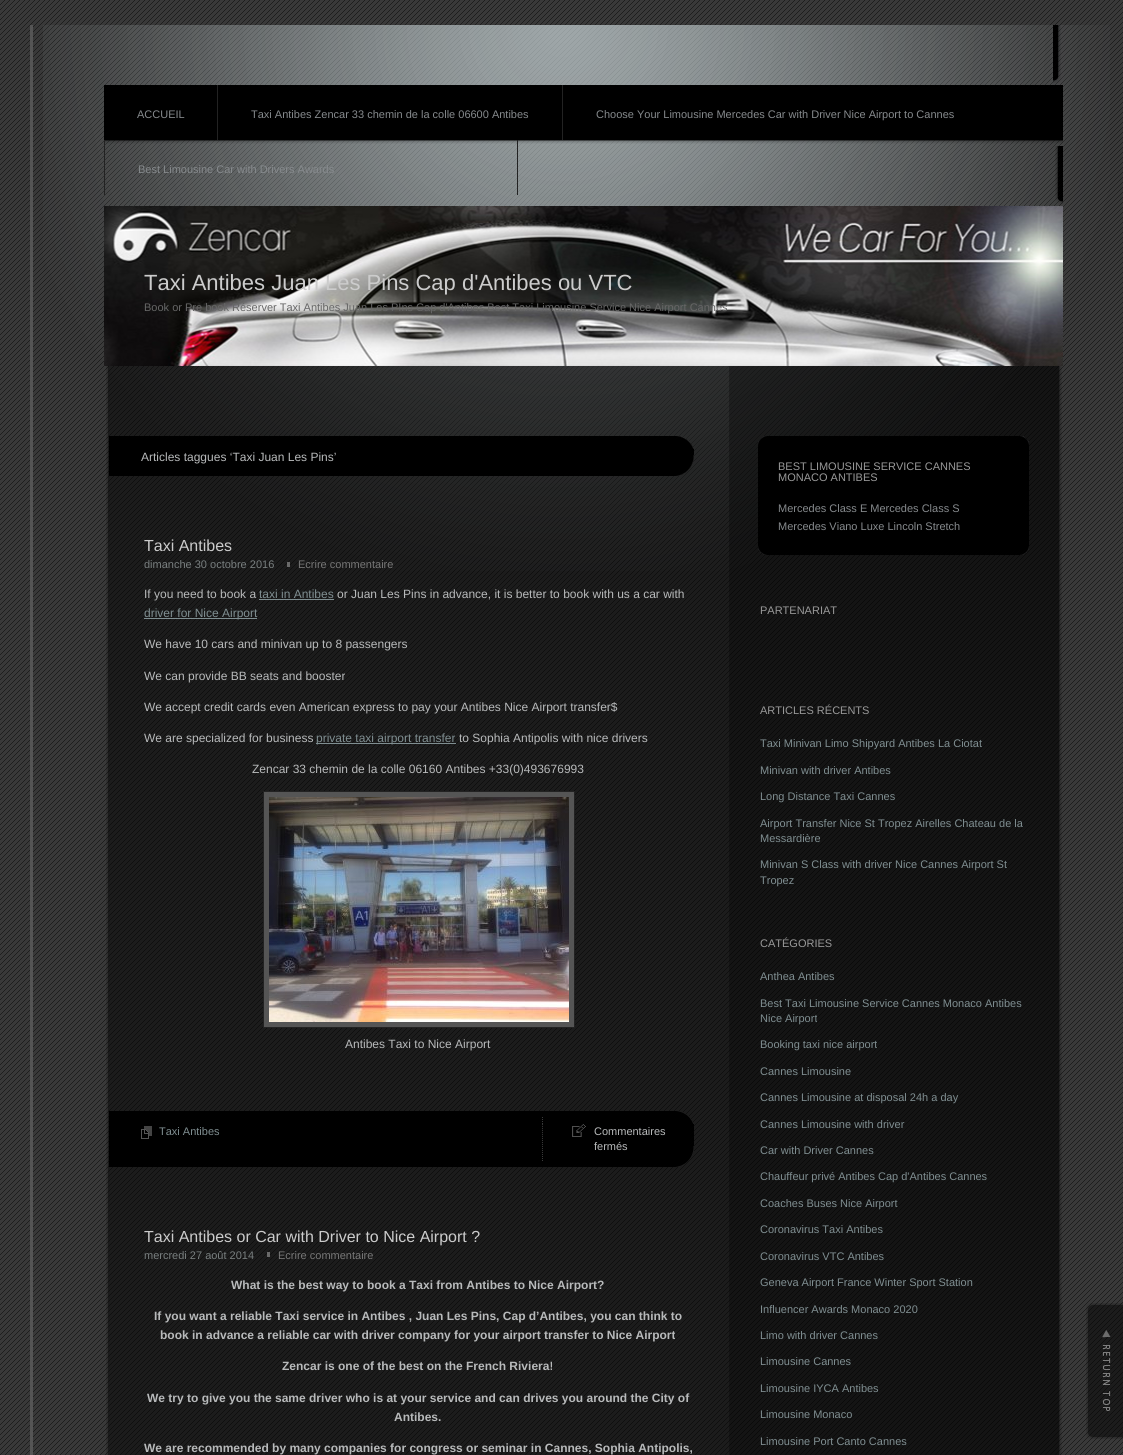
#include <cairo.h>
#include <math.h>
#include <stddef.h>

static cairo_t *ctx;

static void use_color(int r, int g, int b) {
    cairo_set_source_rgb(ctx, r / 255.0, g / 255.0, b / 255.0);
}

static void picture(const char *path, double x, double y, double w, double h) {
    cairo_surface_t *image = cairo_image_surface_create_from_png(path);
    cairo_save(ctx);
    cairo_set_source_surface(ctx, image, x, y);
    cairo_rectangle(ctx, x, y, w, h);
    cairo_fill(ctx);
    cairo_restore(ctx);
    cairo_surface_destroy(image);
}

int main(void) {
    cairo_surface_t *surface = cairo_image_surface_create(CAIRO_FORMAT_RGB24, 1123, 1455);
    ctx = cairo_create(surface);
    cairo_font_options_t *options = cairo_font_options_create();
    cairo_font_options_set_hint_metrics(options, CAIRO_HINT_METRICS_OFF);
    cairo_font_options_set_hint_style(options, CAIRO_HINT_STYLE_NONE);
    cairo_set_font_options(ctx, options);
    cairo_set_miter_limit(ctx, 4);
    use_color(255, 255, 255);
    cairo_paint(ctx);
    picture("img1.png", 0, 0, 1123, 1455);
    use_color(85, 85, 85);
    cairo_rectangle(ctx, 30, 25, 3, 1430);
    cairo_fill(ctx);
    picture("img2.png", 43, 25, 1067, 546);
    picture("img3.png", 1053, 25, 8, 58);
    picture("img4.png", 104, 85, 959, 59);
    cairo_select_font_face(ctx, "Liberation Sans", CAIRO_FONT_SLANT_NORMAL, CAIRO_FONT_WEIGHT_NORMAL);
    cairo_set_font_size(ctx, 11);
    use_color(134, 138, 141);
    cairo_move_to(ctx, 137, 118);
    cairo_show_text(ctx, "ACCUEIL");
    use_color(34, 34, 34);
    cairo_rectangle(ctx, 217, 85, 1, 55);
    cairo_fill(ctx);
    use_color(134, 138, 141);
    cairo_move_to(ctx, 251, 118);
    cairo_show_text(ctx, "Taxi Antibes Zencar 33 chemin de la colle 06600 Antibes");
    use_color(34, 34, 34);
    cairo_rectangle(ctx, 562, 85, 1, 55);
    cairo_fill(ctx);
    use_color(134, 138, 141);
    cairo_move_to(ctx, 596, 118);
    cairo_show_text(ctx, "Choose Your Limousine Mercedes Car with Driver Nice Airport to Cannes");
    use_color(34, 34, 34);
    cairo_rectangle(ctx, 104, 140, 1, 55);
    cairo_fill(ctx);
    use_color(134, 138, 141);
    cairo_move_to(ctx, 138, 173);
    cairo_show_text(ctx, "Best Limousine Car with Drivers Awards");
    use_color(34, 34, 34);
    cairo_rectangle(ctx, 517, 140, 1, 55);
    cairo_fill(ctx);
    picture("img5.png", 1055, 146, 8, 58);
    picture("img6.png", 104, 206, 959, 160);
    cairo_set_font_size(ctx, 22);
    use_color(204, 204, 204);
    cairo_move_to(ctx, 144, 290);
    cairo_show_text(ctx, "Taxi Antibes Juan Les Pins Cap d'Antibes ou VTC");
    cairo_set_font_size(ctx, 11);
    use_color(102, 102, 102);
    cairo_move_to(ctx, 144, 311);
    cairo_show_text(ctx, "Book or Pre book Réserver Taxi Antibes Juan Les PIns Cap d'Antibes Best Taxi Limousine Service Nice Airport Cannes");
    picture("img7.png", 106, 366, 956, 1089);
    picture("img8.png", 109, 436, 585, 13);
    picture("img9.png", 109, 449, 585, 27);
    cairo_set_font_size(ctx, 12);
    use_color(184, 186, 187);
    cairo_move_to(ctx, 141, 461);
    cairo_show_text(ctx, "Articles taggues ‘Taxi Juan Les Pins’");
    cairo_set_font_size(ctx, 16);
    use_color(204, 204, 204);
    cairo_move_to(ctx, 144, 551);
    cairo_show_text(ctx, "Taxi Antibes");
    cairo_set_font_size(ctx, 11);
    use_color(121, 127, 128);
    cairo_move_to(ctx, 144, 568);
    cairo_show_text(ctx, "dimanche 30 octobre 2016");
    use_color(119, 119, 119);
    cairo_move_to(ctx, 298, 568);
    cairo_show_text(ctx, "Ecrire commentaire");
    use_color(106, 106, 106);
    cairo_rectangle(ctx, 287, 562, 3, 5);
    cairo_fill(ctx);
    cairo_set_font_size(ctx, 12);
    use_color(184, 186, 187);
    cairo_move_to(ctx, 144, 598);
    cairo_show_text(ctx, "If you need to book a");
    use_color(127, 142, 145);
    cairo_move_to(ctx, 259, 598);
    cairo_show_text(ctx, "taxi in Antibes");
    cairo_rectangle(ctx, 259, 599, 75, 1);
    cairo_fill(ctx);
    use_color(184, 186, 187);
    cairo_move_to(ctx, 337, 598);
    cairo_show_text(ctx, "or Juan Les Pins in advance, it is better to book with us a car with");
    use_color(127, 142, 145);
    cairo_rectangle(ctx, 144, 618, 113, 1);
    cairo_fill(ctx);
    cairo_move_to(ctx, 144, 617);
    cairo_show_text(ctx, "driver for Nice Airport");
    use_color(184, 186, 187);
    cairo_move_to(ctx, 144, 648);
    cairo_show_text(ctx, "We have 10 cars and minivan up to 8 passengers");
    cairo_move_to(ctx, 144, 680);
    cairo_show_text(ctx, "We can provide BB seats and booster");
    cairo_move_to(ctx, 144, 711);
    cairo_show_text(ctx, "We accept credit cards even American express to pay your Antibes Nice Airport transfer$");
    cairo_move_to(ctx, 144, 742);
    cairo_show_text(ctx, "We are specialized for business");
    use_color(127, 142, 145);
    cairo_rectangle(ctx, 316, 743, 140, 1);
    cairo_fill(ctx);
    cairo_move_to(ctx, 316, 742);
    cairo_show_text(ctx, "private taxi airport transfer");
    use_color(184, 186, 187);
    cairo_move_to(ctx, 459, 742);
    cairo_show_text(ctx, "to Sophia Antipolis with nice drivers");
    cairo_move_to(ctx, 252, 773);
    cairo_show_text(ctx, "Zencar 33 chemin de la colle 06160 Antibes +33(0)493676993");
    use_color(85, 85, 85);
    cairo_rectangle(ctx, 263.5, 791.5, 311, 236);
    cairo_fill_preserve(ctx);
    use_color(34, 34, 34);
    cairo_set_line_width(ctx, 1);
    cairo_stroke(ctx);
    picture("img10.png", 269, 797, 300, 225);
    use_color(184, 186, 187);
    cairo_move_to(ctx, 345, 1048);
    cairo_show_text(ctx, "Antibes Taxi to Nice Airport");
    picture("img11.png", 109, 1111, 585, 13);
    picture("img12.png", 109, 1124, 585, 43);
    picture("img13.png", 141, 1126, 11, 13);
    cairo_set_font_size(ctx, 11);
    use_color(127, 142, 145);
    cairo_move_to(ctx, 159, 1135);
    cairo_show_text(ctx, "Taxi Antibes");
    picture("img14.png", 572, 1124, 14, 13);
    use_color(184, 186, 187);
    cairo_move_to(ctx, 594, 1135);
    cairo_show_text(ctx, "Commentaires");
    cairo_move_to(ctx, 594, 1150);
    cairo_show_text(ctx, "fermés");
    cairo_set_font_size(ctx, 16);
    use_color(204, 204, 204);
    cairo_move_to(ctx, 144, 1242);
    cairo_show_text(ctx, "Taxi Antibes or Car with Driver to Nice Airport ?");
    cairo_set_font_size(ctx, 11);
    use_color(121, 127, 128);
    cairo_move_to(ctx, 144, 1259);
    cairo_show_text(ctx, "mercredi 27 août 2014");
    use_color(119, 119, 119);
    cairo_move_to(ctx, 278, 1259);
    cairo_show_text(ctx, "Ecrire commentaire");
    use_color(106, 106, 106);
    cairo_rectangle(ctx, 267, 1252, 3, 5);
    cairo_fill(ctx);
    cairo_select_font_face(ctx, "Liberation Sans", CAIRO_FONT_SLANT_NORMAL, CAIRO_FONT_WEIGHT_BOLD);
    cairo_set_font_size(ctx, 12);
    use_color(184, 186, 187);
    cairo_move_to(ctx, 231, 1289);
    cairo_show_text(ctx, "What is the best way to book a Taxi from Antibes to Nice Airport?");
    cairo_move_to(ctx, 154, 1320);
    cairo_show_text(ctx, "If you want a reliable Taxi service in Antibes , Juan Les Pins, Cap d’Antibes, you can think to");
    cairo_move_to(ctx, 160, 1339);
    cairo_show_text(ctx, "book in advance a reliable car with driver company for your airport transfer to Nice Airport");
    cairo_move_to(ctx, 282, 1370);
    cairo_show_text(ctx, "Zencar is one of the best on the French Riviera!");
    cairo_move_to(ctx, 147, 1402);
    cairo_show_text(ctx, "We try to give you the same driver who is at your service and can drives you around the City of");
    cairo_move_to(ctx, 394, 1421);
    cairo_show_text(ctx, "Antibes.");
    cairo_move_to(ctx, 144, 1452);
    cairo_show_text(ctx, "We are recommended by many companies for congress or seminar in Cannes, Sophia Antipolis,");
    picture("img15.png", 758, 436, 271, 52);
    cairo_select_font_face(ctx, "Liberation Sans", CAIRO_FONT_SLANT_NORMAL, CAIRO_FONT_WEIGHT_NORMAL);
    cairo_set_font_size(ctx, 11);
    use_color(153, 153, 153);
    cairo_move_to(ctx, 778, 470);
    cairo_show_text(ctx, "BEST LIMOUSINE SERVICE CANNES");
    cairo_move_to(ctx, 778, 481);
    cairo_show_text(ctx, "MONACO ANTIBES");
    picture("img16.png", 758, 488, 271, 67);
    use_color(134, 138, 141);
    cairo_move_to(ctx, 778, 512);
    cairo_show_text(ctx, "Mercedes Class E Mercedes Class S");
    cairo_move_to(ctx, 778, 530);
    cairo_show_text(ctx, "Mercedes Viano Luxe Lincoln Stretch");
    use_color(153, 153, 153);
    cairo_move_to(ctx, 760, 614);
    cairo_show_text(ctx, "PARTENARIAT");
    cairo_move_to(ctx, 760, 714);
    cairo_show_text(ctx, "ARTICLES RÉCENTS");
    use_color(127, 142, 145);
    cairo_move_to(ctx, 760, 747);
    cairo_show_text(ctx, "Taxi Minivan Limo Shipyard Antibes La Ciotat");
    cairo_move_to(ctx, 760, 774);
    cairo_show_text(ctx, "Minivan with driver Antibes");
    cairo_move_to(ctx, 760, 800);
    cairo_show_text(ctx, "Long Distance Taxi Cannes");
    cairo_move_to(ctx, 760, 827);
    cairo_show_text(ctx, "Airport Transfer Nice St Tropez Airelles Chateau de la");
    cairo_move_to(ctx, 760, 842);
    cairo_show_text(ctx, "Messardière");
    cairo_move_to(ctx, 760, 868);
    cairo_show_text(ctx, "Minivan S Class with driver Nice Cannes Airport St");
    cairo_move_to(ctx, 760, 884);
    cairo_show_text(ctx, "Tropez");
    use_color(153, 153, 153);
    cairo_move_to(ctx, 760, 947);
    cairo_show_text(ctx, "CATÉGORIES");
    use_color(127, 142, 145);
    cairo_move_to(ctx, 760, 980);
    cairo_show_text(ctx, "Anthea Antibes");
    cairo_move_to(ctx, 760, 1007);
    cairo_show_text(ctx, "Best Taxi Limousine Service Cannes Monaco Antibes");
    cairo_move_to(ctx, 760, 1022);
    cairo_show_text(ctx, "Nice Airport");
    cairo_move_to(ctx, 760, 1048);
    cairo_show_text(ctx, "Booking taxi nice airport");
    cairo_move_to(ctx, 760, 1075);
    cairo_show_text(ctx, "Cannes Limousine");
    cairo_move_to(ctx, 760, 1101);
    cairo_show_text(ctx, "Cannes Limousine at disposal 24h a day");
    cairo_move_to(ctx, 760, 1128);
    cairo_show_text(ctx, "Cannes Limousine with driver");
    cairo_move_to(ctx, 760, 1154);
    cairo_show_text(ctx, "Car with Driver Cannes");
    cairo_move_to(ctx, 760, 1180);
    cairo_show_text(ctx, "Chauffeur privé Antibes Cap d'Antibes Cannes");
    cairo_move_to(ctx, 760, 1207);
    cairo_show_text(ctx, "Coaches Buses Nice Airport");
    cairo_move_to(ctx, 760, 1233);
    cairo_show_text(ctx, "Coronavirus Taxi Antibes");
    cairo_move_to(ctx, 760, 1260);
    cairo_show_text(ctx, "Coronavirus VTC Antibes");
    cairo_move_to(ctx, 760, 1286);
    cairo_show_text(ctx, "Geneva Airport France Winter Sport Station");
    cairo_move_to(ctx, 760, 1313);
    cairo_show_text(ctx, "Influencer Awards Monaco 2020");
    cairo_move_to(ctx, 760, 1339);
    cairo_show_text(ctx, "Limo with driver Cannes");
    cairo_move_to(ctx, 760, 1365);
    cairo_show_text(ctx, "Limousine Cannes");
    cairo_move_to(ctx, 760, 1392);
    cairo_show_text(ctx, "Limousine IYCA Antibes");
    cairo_move_to(ctx, 760, 1418);
    cairo_show_text(ctx, "Limousine Monaco");
    cairo_move_to(ctx, 760, 1445);
    cairo_show_text(ctx, "Limousine Port Canto Cannes");
    picture("img17.png", 1086, 1303, 37, 136);
    cairo_surface_write_to_png(surface, "result.png");
    cairo_font_options_destroy(options);
    cairo_destroy(ctx);
    cairo_surface_destroy(surface);
    return 0;
}
